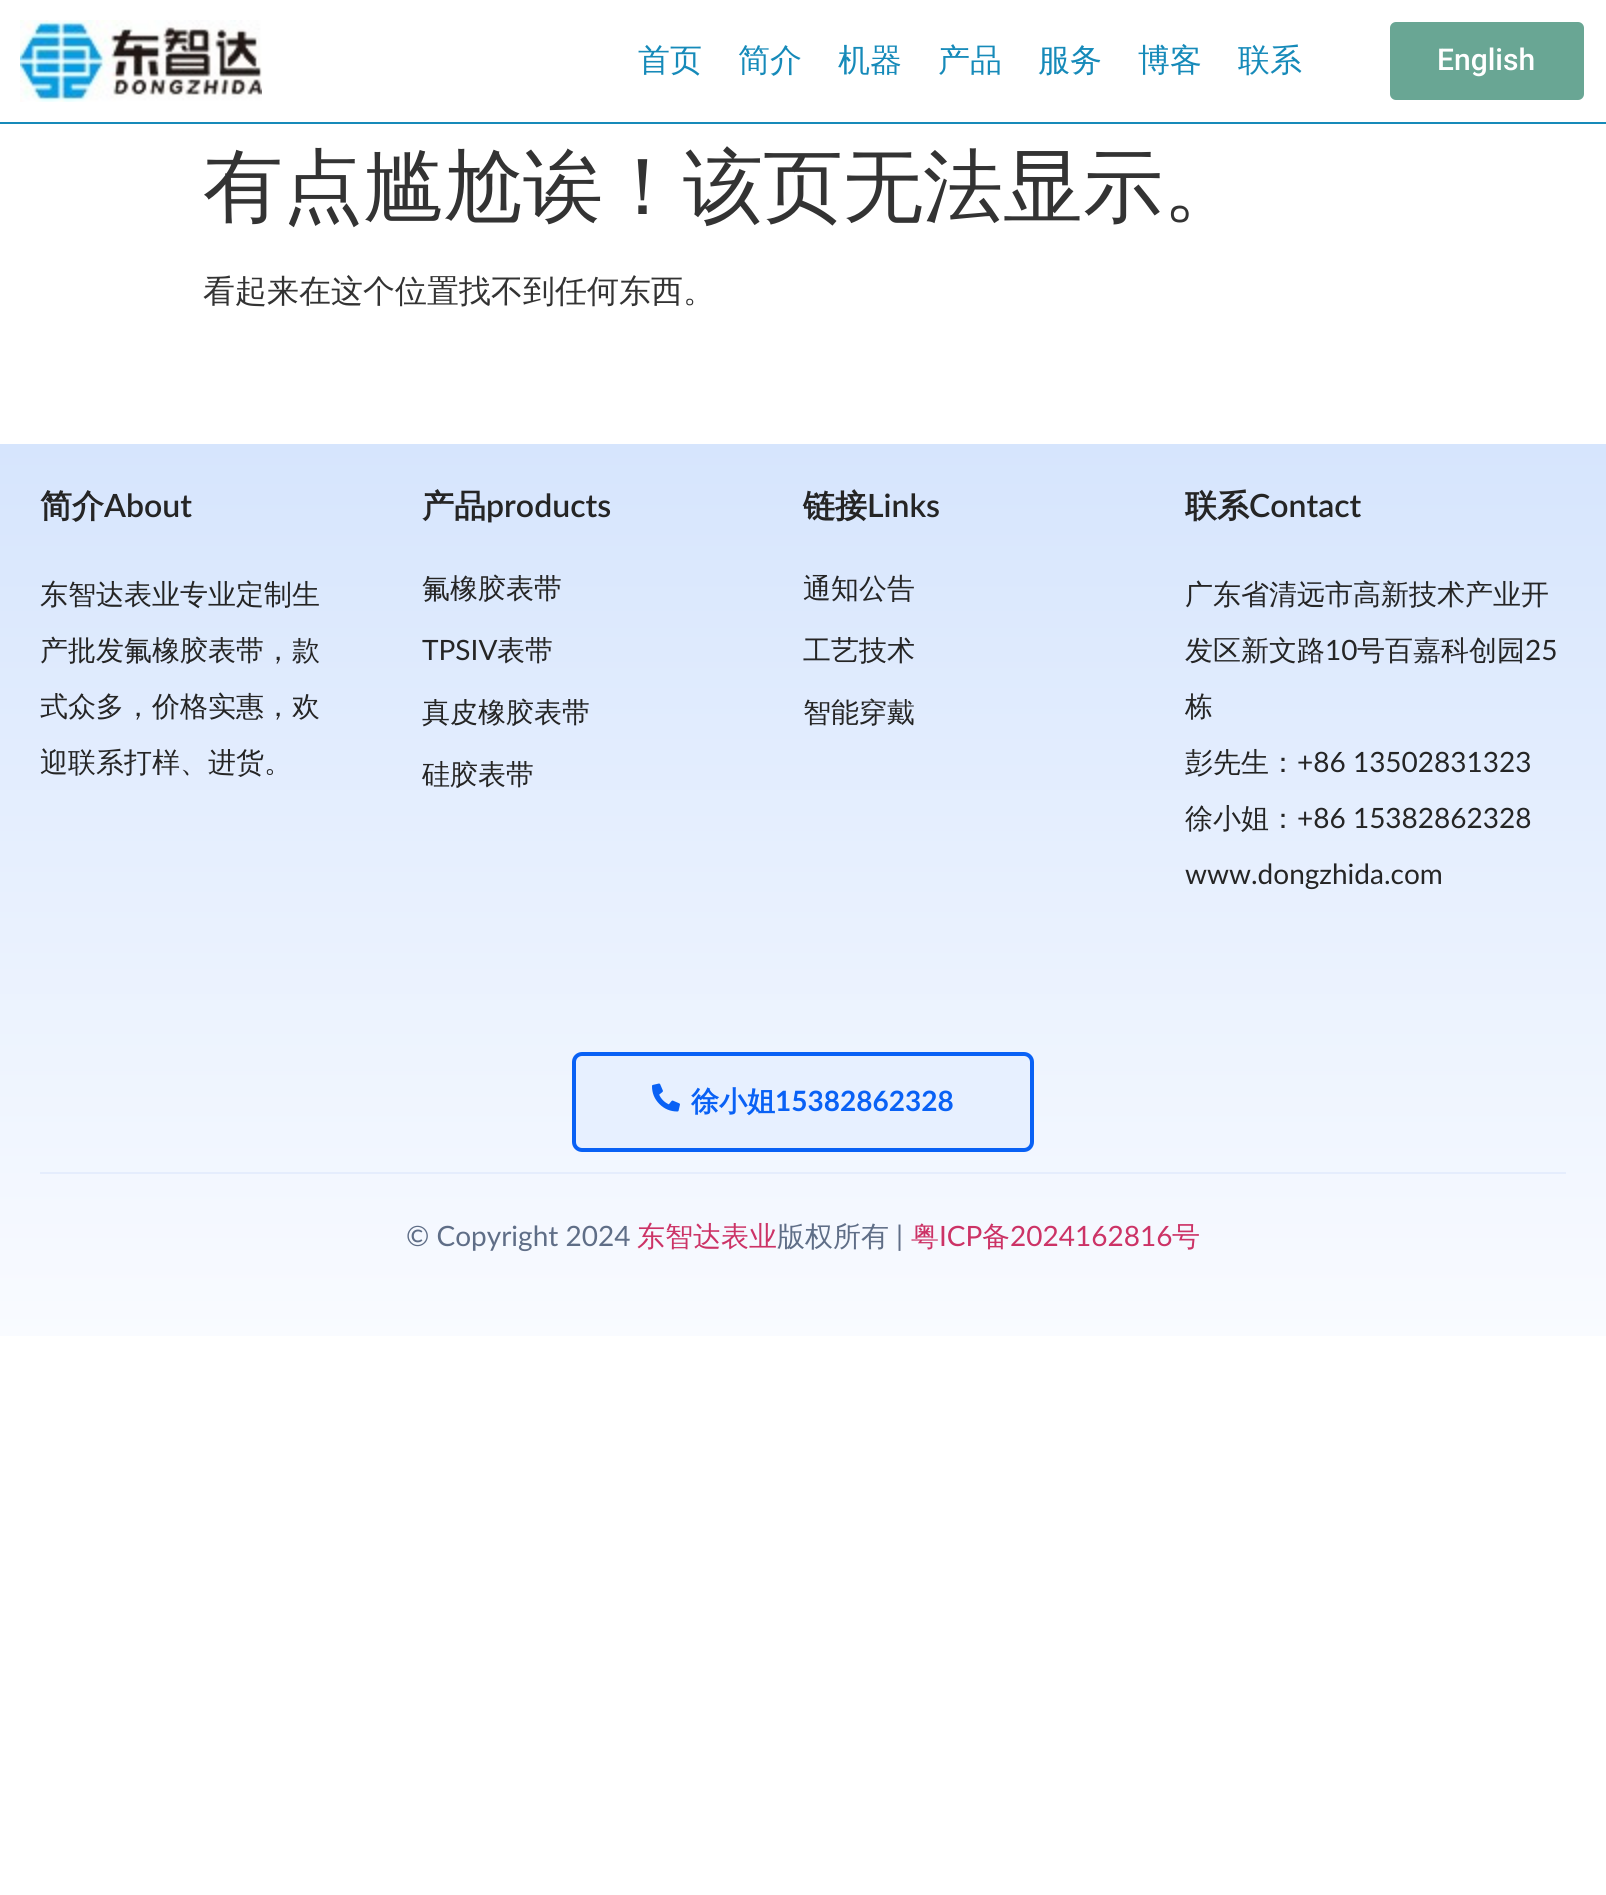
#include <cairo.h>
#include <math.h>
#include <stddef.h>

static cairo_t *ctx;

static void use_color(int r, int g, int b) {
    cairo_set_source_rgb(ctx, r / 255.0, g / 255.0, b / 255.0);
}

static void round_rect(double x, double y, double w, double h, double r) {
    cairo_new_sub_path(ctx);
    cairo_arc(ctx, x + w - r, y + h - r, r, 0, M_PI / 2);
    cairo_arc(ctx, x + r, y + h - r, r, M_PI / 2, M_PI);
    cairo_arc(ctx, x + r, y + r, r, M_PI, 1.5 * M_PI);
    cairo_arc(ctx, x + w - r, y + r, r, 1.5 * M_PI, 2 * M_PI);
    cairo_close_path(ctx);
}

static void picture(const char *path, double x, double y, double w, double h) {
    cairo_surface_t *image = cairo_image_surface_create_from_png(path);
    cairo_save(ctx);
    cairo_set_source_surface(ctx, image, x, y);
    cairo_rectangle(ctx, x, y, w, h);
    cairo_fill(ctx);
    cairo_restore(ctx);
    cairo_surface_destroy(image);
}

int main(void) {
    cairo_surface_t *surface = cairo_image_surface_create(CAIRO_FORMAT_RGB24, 1606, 1895);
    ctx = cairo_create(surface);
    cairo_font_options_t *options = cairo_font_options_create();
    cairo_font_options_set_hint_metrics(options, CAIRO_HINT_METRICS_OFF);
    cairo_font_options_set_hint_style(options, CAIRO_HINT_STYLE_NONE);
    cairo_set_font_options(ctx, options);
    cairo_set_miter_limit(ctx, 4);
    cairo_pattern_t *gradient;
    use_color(255, 255, 255);
    cairo_paint(ctx);
    use_color(22, 138, 185);
    cairo_rectangle(ctx, 0, 122, 1606, 2);
    cairo_fill(ctx);
    picture("img1.png", 20, 20, 242, 82);
    cairo_select_font_face(ctx, "WenQuanYi Zen Hei Medium", CAIRO_FONT_SLANT_NORMAL, CAIRO_FONT_WEIGHT_NORMAL);
    cairo_set_font_size(ctx, 32);
    cairo_move_to(ctx, 638, 71);
    cairo_show_text(ctx, "首页");
    cairo_move_to(ctx, 738, 71);
    cairo_show_text(ctx, "简介");
    cairo_move_to(ctx, 838, 71);
    cairo_show_text(ctx, "机器");
    cairo_move_to(ctx, 938, 71);
    cairo_show_text(ctx, "产品");
    cairo_move_to(ctx, 1038, 71);
    cairo_show_text(ctx, "服务");
    cairo_move_to(ctx, 1138, 71);
    cairo_show_text(ctx, "博客");
    cairo_move_to(ctx, 1238, 71);
    cairo_show_text(ctx, "联系");
    use_color(105, 166, 148);
    round_rect(1390, 22, 194, 78, 6);
    cairo_fill(ctx);
    cairo_select_font_face(ctx, "Roboto Medium", CAIRO_FONT_SLANT_NORMAL, CAIRO_FONT_WEIGHT_NORMAL);
    cairo_set_font_size(ctx, 30);
    use_color(255, 255, 255);
    cairo_move_to(ctx, 1437, 70);
    cairo_show_text(ctx, "English");
    cairo_select_font_face(ctx, "WenQuanYi Zen Hei Medium", CAIRO_FONT_SLANT_NORMAL, CAIRO_FONT_WEIGHT_NORMAL);
    cairo_set_font_size(ctx, 80);
    use_color(51, 51, 51);
    cairo_move_to(ctx, 203, 214);
    cairo_show_text(ctx, "有点尴尬诶！该页无法显示。");
    cairo_set_font_size(ctx, 32);
    cairo_move_to(ctx, 203, 302);
    cairo_show_text(ctx, "看起来在这个位置找不到任何东西。");
    gradient = cairo_pattern_create_linear(803, 444, 803, 1336);
    cairo_pattern_add_color_stop_rgba(gradient, 0, 0.839, 0.898, 0.992, 1);
    cairo_pattern_add_color_stop_rgba(gradient, 1, 0.976, 0.984, 1, 1);
    cairo_set_source(ctx, gradient);
    cairo_pattern_destroy(gradient);
    cairo_rectangle(ctx, 0, 444, 1606, 892);
    cairo_fill(ctx);
    cairo_select_font_face(ctx, "WenQuanYi Zen Hei", CAIRO_FONT_SLANT_NORMAL, CAIRO_FONT_WEIGHT_BOLD);
    use_color(37, 37, 37);
    cairo_move_to(ctx, 40, 517);
    cairo_show_text(ctx, "简介");
    cairo_select_font_face(ctx, "Lato SemiBold", CAIRO_FONT_SLANT_NORMAL, CAIRO_FONT_WEIGHT_NORMAL);
    cairo_move_to(ctx, 104, 517);
    cairo_show_text(ctx, "About");
    cairo_select_font_face(ctx, "WenQuanYi Zen Hei Medium", CAIRO_FONT_SLANT_NORMAL, CAIRO_FONT_WEIGHT_NORMAL);
    cairo_set_font_size(ctx, 28);
    cairo_move_to(ctx, 40, 604);
    cairo_show_text(ctx, "东智达表业专业定制生");
    cairo_move_to(ctx, 40, 660);
    cairo_show_text(ctx, "产批发氟橡胶表带，款");
    cairo_move_to(ctx, 40, 716);
    cairo_show_text(ctx, "式众多，价格实惠，欢");
    cairo_move_to(ctx, 40, 772);
    cairo_show_text(ctx, "迎联系打样、进货。");
    cairo_select_font_face(ctx, "WenQuanYi Zen Hei", CAIRO_FONT_SLANT_NORMAL, CAIRO_FONT_WEIGHT_BOLD);
    cairo_set_font_size(ctx, 32);
    cairo_move_to(ctx, 422, 517);
    cairo_show_text(ctx, "产品");
    cairo_select_font_face(ctx, "Lato SemiBold", CAIRO_FONT_SLANT_NORMAL, CAIRO_FONT_WEIGHT_NORMAL);
    cairo_move_to(ctx, 486, 517);
    cairo_show_text(ctx, "products");
    cairo_select_font_face(ctx, "WenQuanYi Zen Hei Medium", CAIRO_FONT_SLANT_NORMAL, CAIRO_FONT_WEIGHT_NORMAL);
    cairo_set_font_size(ctx, 28);
    cairo_move_to(ctx, 422, 598);
    cairo_show_text(ctx, "氟橡胶表带");
    cairo_select_font_face(ctx, "Lato", CAIRO_FONT_SLANT_NORMAL, CAIRO_FONT_WEIGHT_NORMAL);
    cairo_move_to(ctx, 422, 660);
    cairo_show_text(ctx, "TPSIV");
    cairo_select_font_face(ctx, "WenQuanYi Zen Hei Medium", CAIRO_FONT_SLANT_NORMAL, CAIRO_FONT_WEIGHT_NORMAL);
    cairo_move_to(ctx, 497, 660);
    cairo_show_text(ctx, "表带");
    cairo_move_to(ctx, 422, 722);
    cairo_show_text(ctx, "真皮橡胶表带");
    cairo_move_to(ctx, 422, 784);
    cairo_show_text(ctx, "硅胶表带");
    cairo_select_font_face(ctx, "WenQuanYi Zen Hei", CAIRO_FONT_SLANT_NORMAL, CAIRO_FONT_WEIGHT_BOLD);
    cairo_set_font_size(ctx, 32);
    cairo_move_to(ctx, 803, 517);
    cairo_show_text(ctx, "链接");
    cairo_select_font_face(ctx, "Lato SemiBold", CAIRO_FONT_SLANT_NORMAL, CAIRO_FONT_WEIGHT_NORMAL);
    cairo_move_to(ctx, 867, 517);
    cairo_show_text(ctx, "Links");
    cairo_select_font_face(ctx, "WenQuanYi Zen Hei Medium", CAIRO_FONT_SLANT_NORMAL, CAIRO_FONT_WEIGHT_NORMAL);
    cairo_set_font_size(ctx, 28);
    cairo_move_to(ctx, 803, 598);
    cairo_show_text(ctx, "通知公告");
    cairo_move_to(ctx, 803, 660);
    cairo_show_text(ctx, "工艺技术");
    cairo_move_to(ctx, 803, 722);
    cairo_show_text(ctx, "智能穿戴");
    cairo_select_font_face(ctx, "WenQuanYi Zen Hei", CAIRO_FONT_SLANT_NORMAL, CAIRO_FONT_WEIGHT_BOLD);
    cairo_set_font_size(ctx, 32);
    cairo_move_to(ctx, 1185, 517);
    cairo_show_text(ctx, "联系");
    cairo_select_font_face(ctx, "Lato SemiBold", CAIRO_FONT_SLANT_NORMAL, CAIRO_FONT_WEIGHT_NORMAL);
    cairo_move_to(ctx, 1249, 517);
    cairo_show_text(ctx, "Contact");
    cairo_select_font_face(ctx, "WenQuanYi Zen Hei Medium", CAIRO_FONT_SLANT_NORMAL, CAIRO_FONT_WEIGHT_NORMAL);
    cairo_set_font_size(ctx, 28);
    cairo_move_to(ctx, 1185, 604);
    cairo_show_text(ctx, "广东省清远市高新技术产业开");
    cairo_move_to(ctx, 1185, 660);
    cairo_show_text(ctx, "发区新文路");
    cairo_select_font_face(ctx, "Lato", CAIRO_FONT_SLANT_NORMAL, CAIRO_FONT_WEIGHT_NORMAL);
    cairo_move_to(ctx, 1325, 660);
    cairo_show_text(ctx, "10");
    cairo_select_font_face(ctx, "WenQuanYi Zen Hei Medium", CAIRO_FONT_SLANT_NORMAL, CAIRO_FONT_WEIGHT_NORMAL);
    cairo_move_to(ctx, 1357, 660);
    cairo_show_text(ctx, "号百嘉科创园");
    cairo_select_font_face(ctx, "Lato", CAIRO_FONT_SLANT_NORMAL, CAIRO_FONT_WEIGHT_NORMAL);
    cairo_move_to(ctx, 1525, 660);
    cairo_show_text(ctx, "25");
    cairo_select_font_face(ctx, "WenQuanYi Zen Hei Medium", CAIRO_FONT_SLANT_NORMAL, CAIRO_FONT_WEIGHT_NORMAL);
    cairo_move_to(ctx, 1185, 716);
    cairo_show_text(ctx, "栋");
    cairo_move_to(ctx, 1185, 772);
    cairo_show_text(ctx, "彭先生：");
    cairo_select_font_face(ctx, "Lato", CAIRO_FONT_SLANT_NORMAL, CAIRO_FONT_WEIGHT_NORMAL);
    cairo_move_to(ctx, 1297, 772);
    cairo_show_text(ctx, "+86 13502831323");
    cairo_select_font_face(ctx, "WenQuanYi Zen Hei Medium", CAIRO_FONT_SLANT_NORMAL, CAIRO_FONT_WEIGHT_NORMAL);
    cairo_move_to(ctx, 1185, 828);
    cairo_show_text(ctx, "徐小姐：");
    cairo_select_font_face(ctx, "Lato", CAIRO_FONT_SLANT_NORMAL, CAIRO_FONT_WEIGHT_NORMAL);
    cairo_move_to(ctx, 1297, 828);
    cairo_show_text(ctx, "+86 15382862328");
    cairo_move_to(ctx, 1185, 884);
    cairo_show_text(ctx, "www.dongzhida.com");
    use_color(231, 240, 255);
    round_rect(574, 1054, 458, 96, 8);
    cairo_fill_preserve(ctx);
    use_color(9, 97, 245);
    cairo_set_line_width(ctx, 4);
    cairo_stroke(ctx);
    picture("img2.png", 652, 1083, 28, 29);
    cairo_select_font_face(ctx, "WenQuanYi Zen Hei", CAIRO_FONT_SLANT_NORMAL, CAIRO_FONT_WEIGHT_BOLD);
    cairo_move_to(ctx, 691, 1111);
    cairo_show_text(ctx, "徐小姐");
    cairo_select_font_face(ctx, "Lato", CAIRO_FONT_SLANT_NORMAL, CAIRO_FONT_WEIGHT_BOLD);
    cairo_move_to(ctx, 775, 1111);
    cairo_show_text(ctx, "15382862328");
    use_color(229, 237, 253);
    cairo_rectangle(ctx, 40, 1172, 1526, 2);
    cairo_fill(ctx);
    cairo_select_font_face(ctx, "Lato", CAIRO_FONT_SLANT_NORMAL, CAIRO_FONT_WEIGHT_NORMAL);
    use_color(95, 110, 135);
    cairo_move_to(ctx, 406, 1246);
    cairo_show_text(ctx, "© Copyright 2024");
    cairo_select_font_face(ctx, "WenQuanYi Zen Hei Medium", CAIRO_FONT_SLANT_NORMAL, CAIRO_FONT_WEIGHT_NORMAL);
    use_color(204, 51, 102);
    cairo_move_to(ctx, 637, 1246);
    cairo_show_text(ctx, "东智达表业");
    use_color(95, 110, 135);
    cairo_move_to(ctx, 777, 1246);
    cairo_show_text(ctx, "版权所有");
    cairo_select_font_face(ctx, "Lato", CAIRO_FONT_SLANT_NORMAL, CAIRO_FONT_WEIGHT_NORMAL);
    cairo_move_to(ctx, 896, 1246);
    cairo_show_text(ctx, "|");
    cairo_select_font_face(ctx, "WenQuanYi Zen Hei Medium", CAIRO_FONT_SLANT_NORMAL, CAIRO_FONT_WEIGHT_NORMAL);
    use_color(204, 51, 102);
    cairo_move_to(ctx, 911, 1246);
    cairo_show_text(ctx, "粤");
    cairo_select_font_face(ctx, "Lato", CAIRO_FONT_SLANT_NORMAL, CAIRO_FONT_WEIGHT_NORMAL);
    cairo_move_to(ctx, 939, 1246);
    cairo_show_text(ctx, "ICP");
    cairo_select_font_face(ctx, "WenQuanYi Zen Hei Medium", CAIRO_FONT_SLANT_NORMAL, CAIRO_FONT_WEIGHT_NORMAL);
    cairo_move_to(ctx, 982, 1246);
    cairo_show_text(ctx, "备");
    cairo_select_font_face(ctx, "Lato", CAIRO_FONT_SLANT_NORMAL, CAIRO_FONT_WEIGHT_NORMAL);
    cairo_move_to(ctx, 1010, 1246);
    cairo_show_text(ctx, "2024162816");
    cairo_select_font_face(ctx, "WenQuanYi Zen Hei Medium", CAIRO_FONT_SLANT_NORMAL, CAIRO_FONT_WEIGHT_NORMAL);
    cairo_move_to(ctx, 1172, 1246);
    cairo_show_text(ctx, "号");
    cairo_surface_write_to_png(surface, "result.png");
    cairo_font_options_destroy(options);
    cairo_destroy(ctx);
    cairo_surface_destroy(surface);
    return 0;
}
